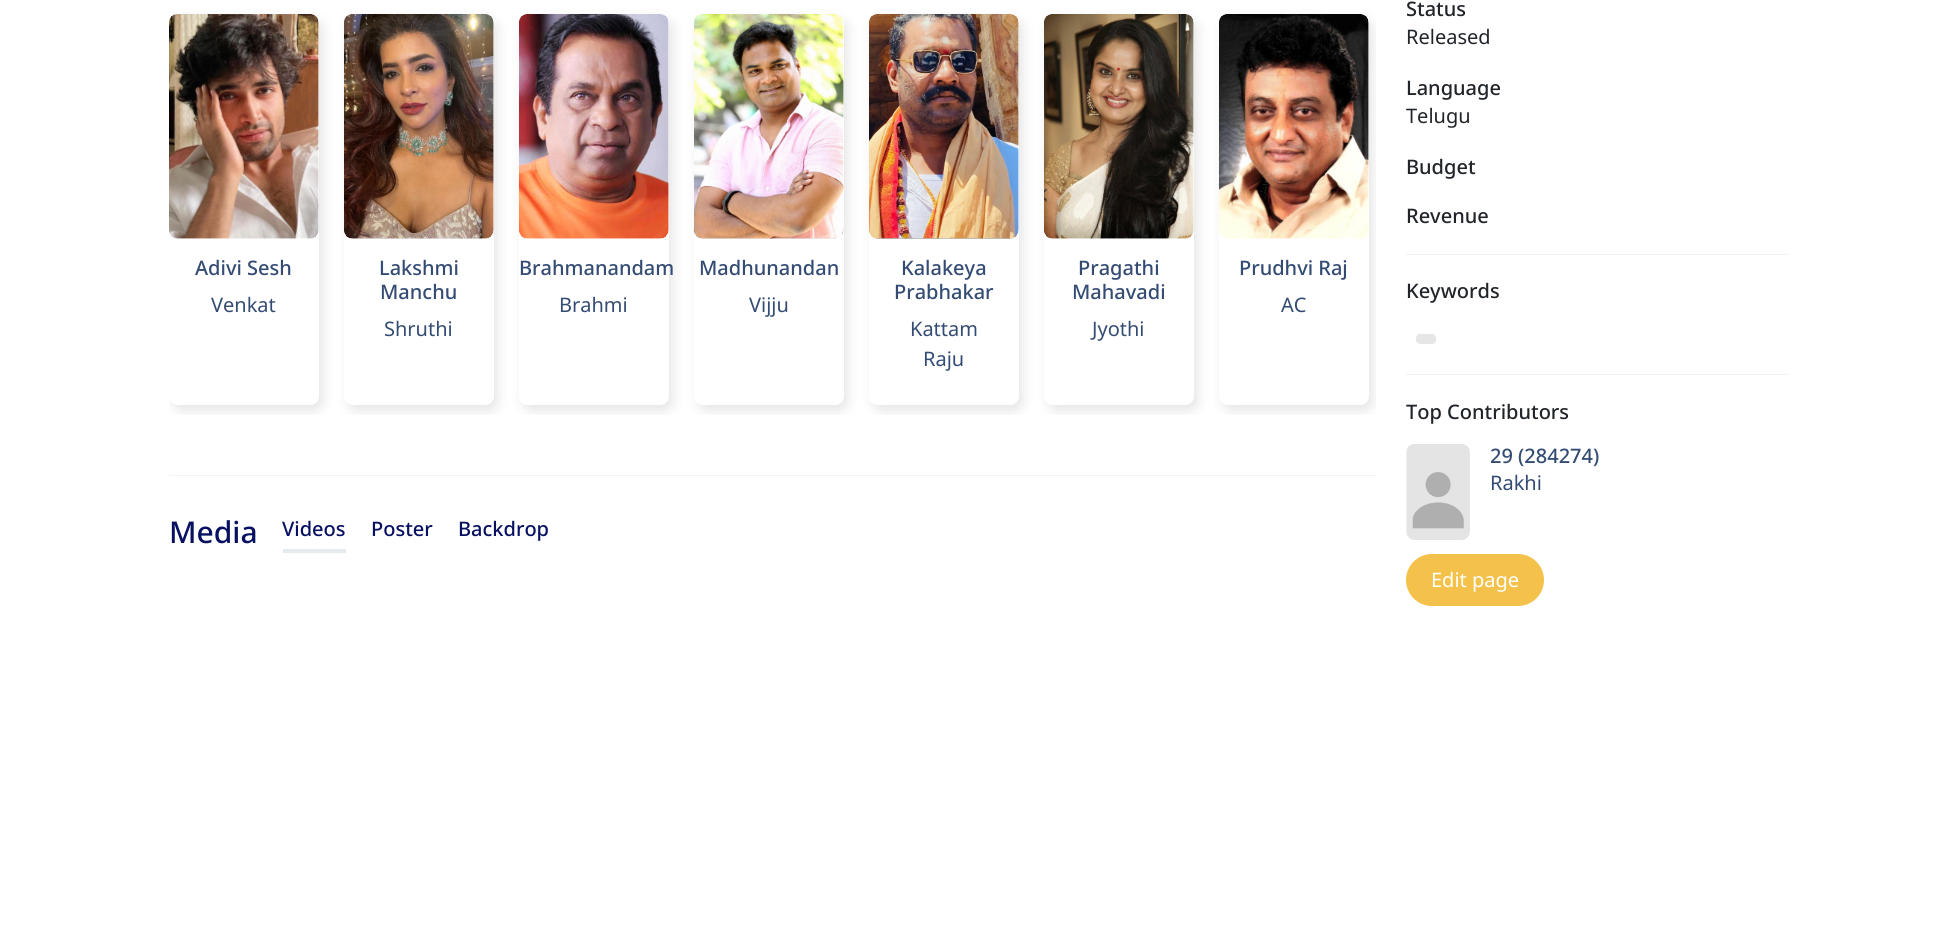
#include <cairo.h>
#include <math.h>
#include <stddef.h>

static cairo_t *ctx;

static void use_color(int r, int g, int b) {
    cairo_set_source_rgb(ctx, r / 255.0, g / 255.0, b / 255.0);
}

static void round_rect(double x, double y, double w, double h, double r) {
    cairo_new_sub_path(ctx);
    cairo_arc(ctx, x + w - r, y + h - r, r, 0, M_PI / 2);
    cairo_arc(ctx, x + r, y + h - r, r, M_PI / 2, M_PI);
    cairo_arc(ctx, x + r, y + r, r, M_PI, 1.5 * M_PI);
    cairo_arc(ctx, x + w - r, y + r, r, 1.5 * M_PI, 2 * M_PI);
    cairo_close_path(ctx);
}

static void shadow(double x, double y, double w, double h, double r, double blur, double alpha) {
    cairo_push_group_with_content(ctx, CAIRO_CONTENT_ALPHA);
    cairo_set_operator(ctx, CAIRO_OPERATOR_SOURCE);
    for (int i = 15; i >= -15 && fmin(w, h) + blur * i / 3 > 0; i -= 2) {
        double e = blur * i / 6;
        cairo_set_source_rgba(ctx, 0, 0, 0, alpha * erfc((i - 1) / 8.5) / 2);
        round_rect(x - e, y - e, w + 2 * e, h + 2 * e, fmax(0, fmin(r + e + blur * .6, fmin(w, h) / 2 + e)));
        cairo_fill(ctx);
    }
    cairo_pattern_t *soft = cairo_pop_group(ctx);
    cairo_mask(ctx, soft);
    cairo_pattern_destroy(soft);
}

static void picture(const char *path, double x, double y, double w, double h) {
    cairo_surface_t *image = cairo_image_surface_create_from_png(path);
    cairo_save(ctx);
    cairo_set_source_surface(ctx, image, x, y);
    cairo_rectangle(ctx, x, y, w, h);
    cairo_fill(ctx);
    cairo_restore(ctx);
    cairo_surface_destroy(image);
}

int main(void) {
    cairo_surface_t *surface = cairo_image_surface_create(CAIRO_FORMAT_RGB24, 1957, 949);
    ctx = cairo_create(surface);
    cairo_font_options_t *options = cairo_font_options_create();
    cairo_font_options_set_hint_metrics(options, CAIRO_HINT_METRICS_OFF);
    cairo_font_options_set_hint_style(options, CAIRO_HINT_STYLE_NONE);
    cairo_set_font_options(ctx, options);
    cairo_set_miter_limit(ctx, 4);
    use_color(255, 255, 255);
    cairo_paint(ctx);
    cairo_save(ctx);
    cairo_rectangle(ctx, 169, 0, 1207, 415);
    cairo_clip(ctx);
    cairo_set_fill_rule(ctx, CAIRO_FILL_RULE_EVEN_ODD);
    cairo_new_path(ctx);
    cairo_move_to(ctx, 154, 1);
    cairo_line_to(ctx, 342, 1);
    cairo_line_to(ctx, 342, 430);
    cairo_line_to(ctx, 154, 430);
    cairo_close_path(ctx);
    cairo_move_to(ctx, 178, 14);
    cairo_line_to(ctx, 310, 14);
    cairo_curve_to(ctx, 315, 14, 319, 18, 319, 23);
    cairo_line_to(ctx, 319, 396);
    cairo_curve_to(ctx, 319, 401, 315, 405, 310, 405);
    cairo_line_to(ctx, 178, 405);
    cairo_curve_to(ctx, 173, 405, 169, 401, 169, 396);
    cairo_line_to(ctx, 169, 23);
    cairo_curve_to(ctx, 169, 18, 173, 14, 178, 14);
    cairo_close_path(ctx);
    cairo_clip(ctx);
    use_color(0, 0, 0);
    shadow(173, 20, 150, 391, 9, 6, 0.1);
    cairo_restore(ctx);
    picture("img1.png", 169, 14, 150, 225);
    cairo_select_font_face(ctx, "Noto Sans Medium", CAIRO_FONT_SLANT_NORMAL, CAIRO_FONT_WEIGHT_NORMAL);
    cairo_set_font_size(ctx, 20);
    use_color(52, 76, 116);
    cairo_move_to(ctx, 195, 275);
    cairo_show_text(ctx, "Adivi Sesh");
    cairo_select_font_face(ctx, "Noto Sans", CAIRO_FONT_SLANT_NORMAL, CAIRO_FONT_WEIGHT_NORMAL);
    cairo_move_to(ctx, 211, 312);
    cairo_show_text(ctx, "Venkat");
    cairo_save(ctx);
    cairo_rectangle(ctx, 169, 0, 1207, 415);
    cairo_clip(ctx);
    cairo_set_fill_rule(ctx, CAIRO_FILL_RULE_EVEN_ODD);
    cairo_new_path(ctx);
    cairo_move_to(ctx, 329, 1);
    cairo_line_to(ctx, 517, 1);
    cairo_line_to(ctx, 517, 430);
    cairo_line_to(ctx, 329, 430);
    cairo_close_path(ctx);
    cairo_move_to(ctx, 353, 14);
    cairo_line_to(ctx, 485, 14);
    cairo_curve_to(ctx, 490, 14, 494, 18, 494, 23);
    cairo_line_to(ctx, 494, 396);
    cairo_curve_to(ctx, 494, 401, 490, 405, 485, 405);
    cairo_line_to(ctx, 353, 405);
    cairo_curve_to(ctx, 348, 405, 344, 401, 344, 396);
    cairo_line_to(ctx, 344, 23);
    cairo_curve_to(ctx, 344, 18, 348, 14, 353, 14);
    cairo_close_path(ctx);
    cairo_clip(ctx);
    use_color(0, 0, 0);
    shadow(348, 20, 150, 391, 9, 6, 0.1);
    cairo_restore(ctx);
    picture("img2.png", 344, 14, 150, 225);
    cairo_select_font_face(ctx, "Noto Sans Medium", CAIRO_FONT_SLANT_NORMAL, CAIRO_FONT_WEIGHT_NORMAL);
    cairo_move_to(ctx, 379, 275);
    cairo_show_text(ctx, "Lakshmi");
    cairo_move_to(ctx, 380, 299);
    cairo_show_text(ctx, "Manchu");
    cairo_select_font_face(ctx, "Noto Sans", CAIRO_FONT_SLANT_NORMAL, CAIRO_FONT_WEIGHT_NORMAL);
    cairo_move_to(ctx, 384, 336);
    cairo_show_text(ctx, "Shruthi");
    cairo_save(ctx);
    cairo_rectangle(ctx, 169, 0, 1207, 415);
    cairo_clip(ctx);
    cairo_set_fill_rule(ctx, CAIRO_FILL_RULE_EVEN_ODD);
    cairo_new_path(ctx);
    cairo_move_to(ctx, 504, 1);
    cairo_line_to(ctx, 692, 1);
    cairo_line_to(ctx, 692, 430);
    cairo_line_to(ctx, 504, 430);
    cairo_close_path(ctx);
    cairo_move_to(ctx, 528, 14);
    cairo_line_to(ctx, 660, 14);
    cairo_curve_to(ctx, 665, 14, 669, 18, 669, 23);
    cairo_line_to(ctx, 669, 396);
    cairo_curve_to(ctx, 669, 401, 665, 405, 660, 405);
    cairo_line_to(ctx, 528, 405);
    cairo_curve_to(ctx, 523, 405, 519, 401, 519, 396);
    cairo_line_to(ctx, 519, 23);
    cairo_curve_to(ctx, 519, 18, 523, 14, 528, 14);
    cairo_close_path(ctx);
    cairo_clip(ctx);
    use_color(0, 0, 0);
    shadow(523, 20, 150, 391, 9, 6, 0.1);
    cairo_restore(ctx);
    picture("img3.png", 519, 14, 150, 225);
    cairo_select_font_face(ctx, "Noto Sans Medium", CAIRO_FONT_SLANT_NORMAL, CAIRO_FONT_WEIGHT_NORMAL);
    cairo_move_to(ctx, 519, 275);
    cairo_show_text(ctx, "Brahmanandam");
    cairo_select_font_face(ctx, "Noto Sans", CAIRO_FONT_SLANT_NORMAL, CAIRO_FONT_WEIGHT_NORMAL);
    cairo_move_to(ctx, 559, 312);
    cairo_show_text(ctx, "Brahmi");
    cairo_save(ctx);
    cairo_rectangle(ctx, 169, 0, 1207, 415);
    cairo_clip(ctx);
    cairo_set_fill_rule(ctx, CAIRO_FILL_RULE_EVEN_ODD);
    cairo_new_path(ctx);
    cairo_move_to(ctx, 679, 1);
    cairo_line_to(ctx, 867, 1);
    cairo_line_to(ctx, 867, 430);
    cairo_line_to(ctx, 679, 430);
    cairo_close_path(ctx);
    cairo_move_to(ctx, 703, 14);
    cairo_line_to(ctx, 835, 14);
    cairo_curve_to(ctx, 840, 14, 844, 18, 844, 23);
    cairo_line_to(ctx, 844, 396);
    cairo_curve_to(ctx, 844, 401, 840, 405, 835, 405);
    cairo_line_to(ctx, 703, 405);
    cairo_curve_to(ctx, 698, 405, 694, 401, 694, 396);
    cairo_line_to(ctx, 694, 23);
    cairo_curve_to(ctx, 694, 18, 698, 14, 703, 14);
    cairo_close_path(ctx);
    cairo_clip(ctx);
    use_color(0, 0, 0);
    shadow(698, 20, 150, 391, 9, 6, 0.1);
    cairo_restore(ctx);
    picture("img4.png", 694, 14, 150, 225);
    cairo_select_font_face(ctx, "Noto Sans Medium", CAIRO_FONT_SLANT_NORMAL, CAIRO_FONT_WEIGHT_NORMAL);
    cairo_move_to(ctx, 699, 275);
    cairo_show_text(ctx, "Madhunandan");
    cairo_select_font_face(ctx, "Noto Sans", CAIRO_FONT_SLANT_NORMAL, CAIRO_FONT_WEIGHT_NORMAL);
    cairo_move_to(ctx, 749, 312);
    cairo_show_text(ctx, "Vijju");
    cairo_save(ctx);
    cairo_rectangle(ctx, 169, 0, 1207, 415);
    cairo_clip(ctx);
    cairo_set_fill_rule(ctx, CAIRO_FILL_RULE_EVEN_ODD);
    cairo_new_path(ctx);
    cairo_move_to(ctx, 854, 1);
    cairo_line_to(ctx, 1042, 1);
    cairo_line_to(ctx, 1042, 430);
    cairo_line_to(ctx, 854, 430);
    cairo_close_path(ctx);
    cairo_move_to(ctx, 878, 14);
    cairo_line_to(ctx, 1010, 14);
    cairo_curve_to(ctx, 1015, 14, 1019, 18, 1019, 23);
    cairo_line_to(ctx, 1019, 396);
    cairo_curve_to(ctx, 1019, 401, 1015, 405, 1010, 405);
    cairo_line_to(ctx, 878, 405);
    cairo_curve_to(ctx, 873, 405, 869, 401, 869, 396);
    cairo_line_to(ctx, 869, 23);
    cairo_curve_to(ctx, 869, 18, 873, 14, 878, 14);
    cairo_close_path(ctx);
    cairo_clip(ctx);
    use_color(0, 0, 0);
    shadow(873, 20, 150, 391, 9, 6, 0.1);
    cairo_restore(ctx);
    picture("img5.png", 869, 14, 150, 225);
    cairo_select_font_face(ctx, "Noto Sans Medium", CAIRO_FONT_SLANT_NORMAL, CAIRO_FONT_WEIGHT_NORMAL);
    cairo_move_to(ctx, 901, 275);
    cairo_show_text(ctx, "Kalakeya");
    cairo_move_to(ctx, 894, 299);
    cairo_show_text(ctx, "Prabhakar");
    cairo_select_font_face(ctx, "Noto Sans", CAIRO_FONT_SLANT_NORMAL, CAIRO_FONT_WEIGHT_NORMAL);
    cairo_move_to(ctx, 910, 336);
    cairo_show_text(ctx, "Kattam");
    cairo_move_to(ctx, 923, 366);
    cairo_show_text(ctx, "Raju");
    cairo_save(ctx);
    cairo_rectangle(ctx, 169, 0, 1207, 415);
    cairo_clip(ctx);
    cairo_set_fill_rule(ctx, CAIRO_FILL_RULE_EVEN_ODD);
    cairo_new_path(ctx);
    cairo_move_to(ctx, 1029, 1);
    cairo_line_to(ctx, 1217, 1);
    cairo_line_to(ctx, 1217, 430);
    cairo_line_to(ctx, 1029, 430);
    cairo_close_path(ctx);
    cairo_move_to(ctx, 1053, 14);
    cairo_line_to(ctx, 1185, 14);
    cairo_curve_to(ctx, 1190, 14, 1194, 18, 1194, 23);
    cairo_line_to(ctx, 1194, 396);
    cairo_curve_to(ctx, 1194, 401, 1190, 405, 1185, 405);
    cairo_line_to(ctx, 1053, 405);
    cairo_curve_to(ctx, 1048, 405, 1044, 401, 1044, 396);
    cairo_line_to(ctx, 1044, 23);
    cairo_curve_to(ctx, 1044, 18, 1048, 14, 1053, 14);
    cairo_close_path(ctx);
    cairo_clip(ctx);
    use_color(0, 0, 0);
    shadow(1048, 20, 150, 391, 9, 6, 0.1);
    cairo_restore(ctx);
    picture("img6.png", 1044, 14, 150, 225);
    cairo_select_font_face(ctx, "Noto Sans Medium", CAIRO_FONT_SLANT_NORMAL, CAIRO_FONT_WEIGHT_NORMAL);
    cairo_move_to(ctx, 1078, 275);
    cairo_show_text(ctx, "Pragathi");
    cairo_move_to(ctx, 1072, 299);
    cairo_show_text(ctx, "Mahavadi");
    cairo_select_font_face(ctx, "Noto Sans", CAIRO_FONT_SLANT_NORMAL, CAIRO_FONT_WEIGHT_NORMAL);
    cairo_move_to(ctx, 1092, 336);
    cairo_show_text(ctx, "Jyothi");
    cairo_save(ctx);
    cairo_rectangle(ctx, 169, 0, 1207, 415);
    cairo_clip(ctx);
    cairo_set_fill_rule(ctx, CAIRO_FILL_RULE_EVEN_ODD);
    cairo_new_path(ctx);
    cairo_move_to(ctx, 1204, 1);
    cairo_line_to(ctx, 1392, 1);
    cairo_line_to(ctx, 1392, 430);
    cairo_line_to(ctx, 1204, 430);
    cairo_close_path(ctx);
    cairo_move_to(ctx, 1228, 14);
    cairo_line_to(ctx, 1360, 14);
    cairo_curve_to(ctx, 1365, 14, 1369, 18, 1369, 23);
    cairo_line_to(ctx, 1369, 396);
    cairo_curve_to(ctx, 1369, 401, 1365, 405, 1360, 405);
    cairo_line_to(ctx, 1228, 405);
    cairo_curve_to(ctx, 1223, 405, 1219, 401, 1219, 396);
    cairo_line_to(ctx, 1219, 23);
    cairo_curve_to(ctx, 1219, 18, 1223, 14, 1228, 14);
    cairo_close_path(ctx);
    cairo_clip(ctx);
    use_color(0, 0, 0);
    shadow(1223, 20, 150, 391, 9, 6, 0.1);
    cairo_restore(ctx);
    picture("img7.png", 1219, 14, 150, 225);
    cairo_select_font_face(ctx, "Noto Sans Medium", CAIRO_FONT_SLANT_NORMAL, CAIRO_FONT_WEIGHT_NORMAL);
    cairo_move_to(ctx, 1239, 275);
    cairo_show_text(ctx, "Prudhvi Raj");
    cairo_select_font_face(ctx, "Noto Sans", CAIRO_FONT_SLANT_NORMAL, CAIRO_FONT_WEIGHT_NORMAL);
    cairo_move_to(ctx, 1281, 312);
    cairo_show_text(ctx, "AC");
    use_color(242, 242, 242);
    cairo_rectangle(ctx, 169, 475, 1207, 1);
    cairo_fill(ctx);
    cairo_select_font_face(ctx, "Noto Sans Medium", CAIRO_FONT_SLANT_NORMAL, CAIRO_FONT_WEIGHT_NORMAL);
    cairo_set_font_size(ctx, 30);
    use_color(7, 16, 97);
    cairo_move_to(ctx, 169, 543);
    cairo_show_text(ctx, "Media");
    use_color(228, 235, 239);
    cairo_rectangle(ctx, 283, 549, 63, 4);
    cairo_fill(ctx);
    cairo_set_font_size(ctx, 20);
    use_color(7, 16, 97);
    cairo_move_to(ctx, 282, 536);
    cairo_show_text(ctx, "Videos");
    cairo_move_to(ctx, 371, 536);
    cairo_show_text(ctx, "Poster");
    cairo_move_to(ctx, 458, 536);
    cairo_show_text(ctx, "Backdrop");
    use_color(33, 37, 41);
    cairo_move_to(ctx, 1406, 16);
    cairo_show_text(ctx, "Status");
    cairo_select_font_face(ctx, "Noto Sans", CAIRO_FONT_SLANT_NORMAL, CAIRO_FONT_WEIGHT_NORMAL);
    cairo_move_to(ctx, 1406, 44);
    cairo_show_text(ctx, "Released");
    cairo_select_font_face(ctx, "Noto Sans Medium", CAIRO_FONT_SLANT_NORMAL, CAIRO_FONT_WEIGHT_NORMAL);
    cairo_move_to(ctx, 1406, 95);
    cairo_show_text(ctx, "Language");
    cairo_select_font_face(ctx, "Noto Sans", CAIRO_FONT_SLANT_NORMAL, CAIRO_FONT_WEIGHT_NORMAL);
    cairo_move_to(ctx, 1406, 123);
    cairo_show_text(ctx, "Telugu");
    cairo_select_font_face(ctx, "Noto Sans Medium", CAIRO_FONT_SLANT_NORMAL, CAIRO_FONT_WEIGHT_NORMAL);
    cairo_move_to(ctx, 1406, 174);
    cairo_show_text(ctx, "Budget");
    cairo_move_to(ctx, 1406, 223);
    cairo_show_text(ctx, "Revenue");
    use_color(242, 242, 242);
    cairo_rectangle(ctx, 1406, 254, 383, 1);
    cairo_fill(ctx);
    use_color(33, 37, 41);
    cairo_move_to(ctx, 1406, 298);
    cairo_show_text(ctx, "Keywords");
    use_color(230, 230, 230);
    round_rect(1416, 334, 20, 10, 4);
    cairo_fill(ctx);
    use_color(242, 242, 242);
    cairo_rectangle(ctx, 1406, 374, 383, 1);
    cairo_fill(ctx);
    use_color(33, 37, 41);
    cairo_move_to(ctx, 1406, 419);
    cairo_show_text(ctx, "Top Contributors");
    picture("img8.png", 1406, 444, 64, 96);
    use_color(52, 76, 116);
    cairo_move_to(ctx, 1490, 463);
    cairo_show_text(ctx, "29 (284274)");
    cairo_select_font_face(ctx, "Noto Sans", CAIRO_FONT_SLANT_NORMAL, CAIRO_FONT_WEIGHT_NORMAL);
    cairo_move_to(ctx, 1490, 490);
    cairo_show_text(ctx, "Rakhi");
    use_color(244, 194, 74);
    round_rect(1406, 554, 138, 52, 26);
    cairo_fill(ctx);
    use_color(255, 255, 255);
    cairo_move_to(ctx, 1431, 587);
    cairo_show_text(ctx, "Edit page");
    cairo_surface_write_to_png(surface, "result.png");
    cairo_font_options_destroy(options);
    cairo_destroy(ctx);
    cairo_surface_destroy(surface);
    return 0;
}
